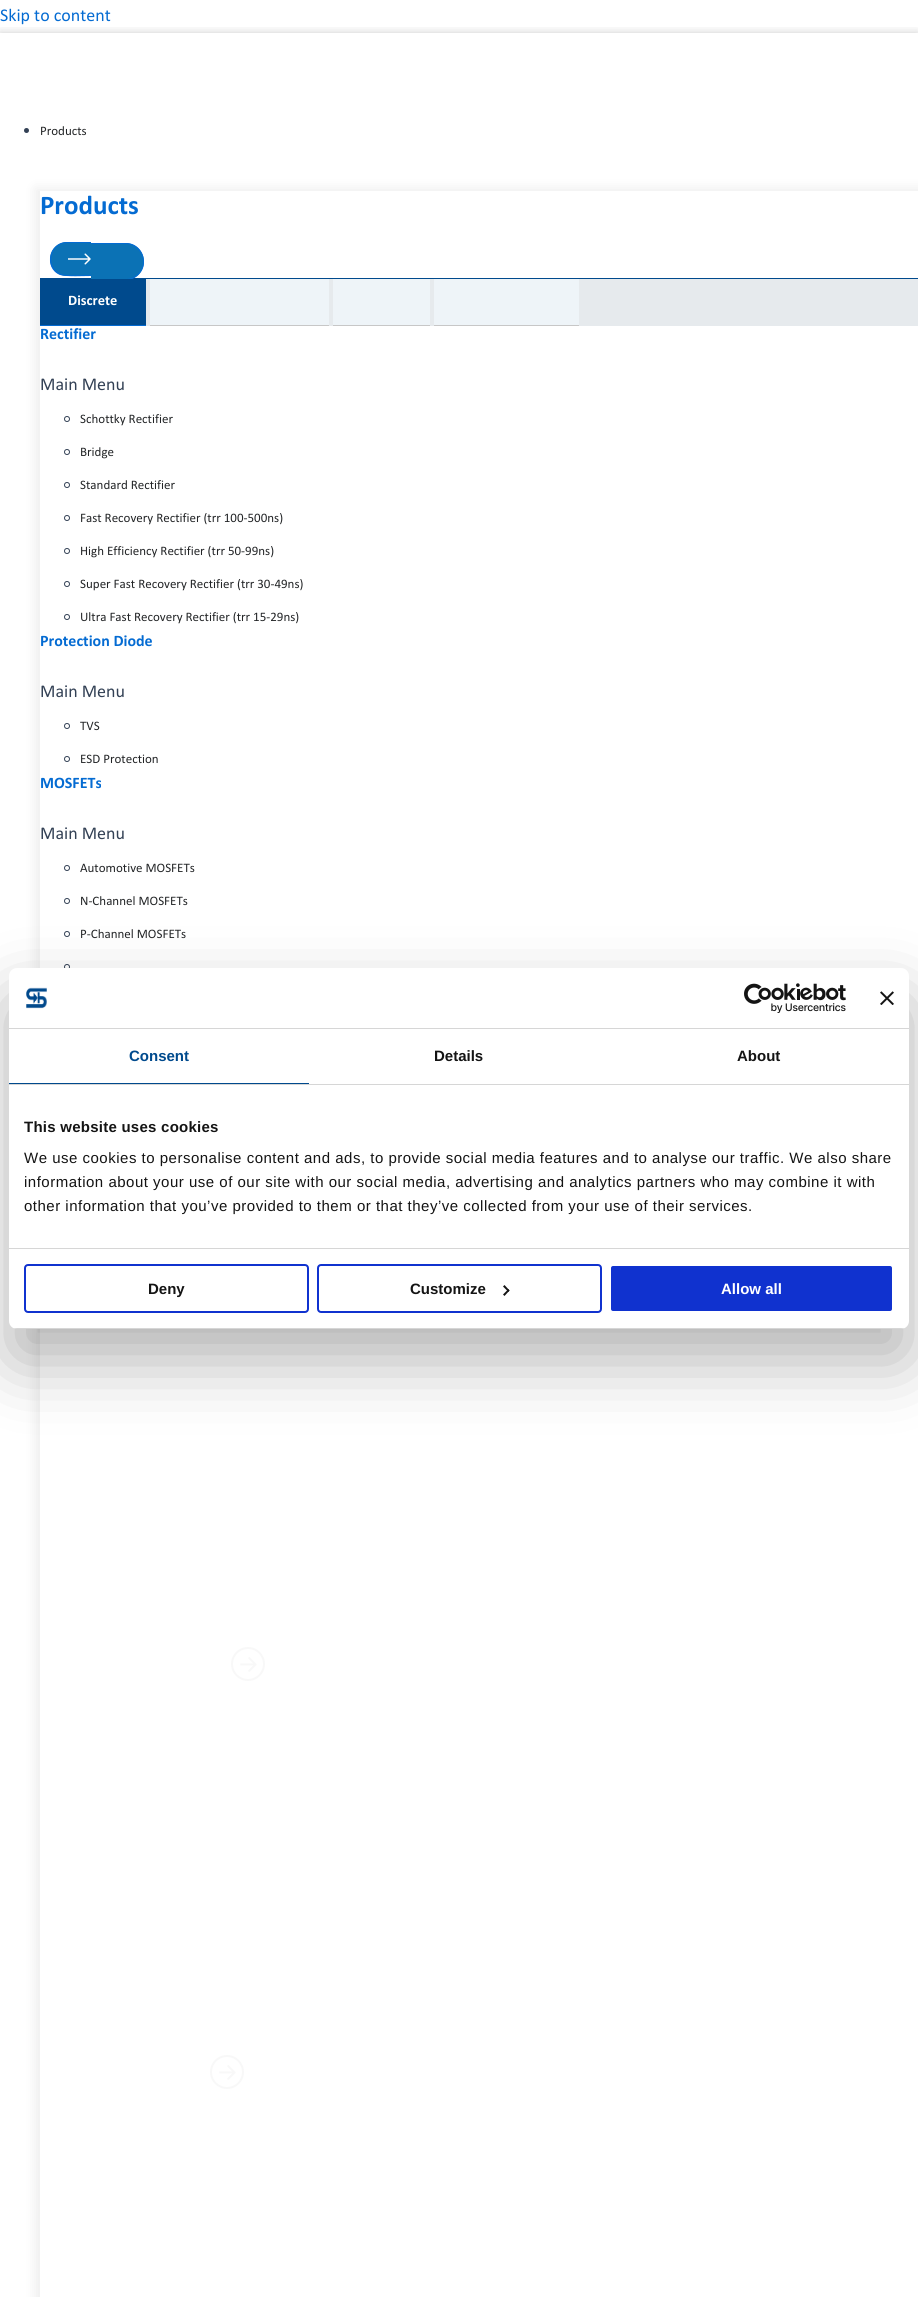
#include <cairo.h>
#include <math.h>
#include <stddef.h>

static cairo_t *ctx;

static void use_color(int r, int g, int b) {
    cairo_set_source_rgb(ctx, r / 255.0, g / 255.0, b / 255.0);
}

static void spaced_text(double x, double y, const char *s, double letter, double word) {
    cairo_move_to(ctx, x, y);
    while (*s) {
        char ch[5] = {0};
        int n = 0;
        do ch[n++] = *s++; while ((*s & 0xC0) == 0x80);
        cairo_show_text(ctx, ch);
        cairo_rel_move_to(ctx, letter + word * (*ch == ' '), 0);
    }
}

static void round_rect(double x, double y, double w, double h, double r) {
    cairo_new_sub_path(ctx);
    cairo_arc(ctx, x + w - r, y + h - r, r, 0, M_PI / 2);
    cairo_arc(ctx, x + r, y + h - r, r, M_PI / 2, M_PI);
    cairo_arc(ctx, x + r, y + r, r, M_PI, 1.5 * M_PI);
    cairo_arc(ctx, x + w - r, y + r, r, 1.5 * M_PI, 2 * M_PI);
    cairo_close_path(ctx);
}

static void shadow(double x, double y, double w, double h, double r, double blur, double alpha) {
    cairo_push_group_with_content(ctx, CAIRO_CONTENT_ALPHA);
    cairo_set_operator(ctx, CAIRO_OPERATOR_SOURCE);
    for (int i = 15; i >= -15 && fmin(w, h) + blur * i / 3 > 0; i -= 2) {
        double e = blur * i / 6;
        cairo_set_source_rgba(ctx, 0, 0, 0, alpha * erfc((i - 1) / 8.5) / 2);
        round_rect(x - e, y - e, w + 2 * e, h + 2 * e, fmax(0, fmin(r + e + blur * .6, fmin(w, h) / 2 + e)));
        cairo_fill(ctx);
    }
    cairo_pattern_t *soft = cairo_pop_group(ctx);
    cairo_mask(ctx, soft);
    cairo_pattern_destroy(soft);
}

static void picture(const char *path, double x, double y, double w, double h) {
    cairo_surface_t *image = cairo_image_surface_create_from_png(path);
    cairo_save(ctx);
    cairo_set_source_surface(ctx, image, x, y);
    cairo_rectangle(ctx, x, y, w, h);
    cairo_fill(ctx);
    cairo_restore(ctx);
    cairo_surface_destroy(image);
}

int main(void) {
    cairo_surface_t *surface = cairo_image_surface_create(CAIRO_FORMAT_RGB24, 918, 2297);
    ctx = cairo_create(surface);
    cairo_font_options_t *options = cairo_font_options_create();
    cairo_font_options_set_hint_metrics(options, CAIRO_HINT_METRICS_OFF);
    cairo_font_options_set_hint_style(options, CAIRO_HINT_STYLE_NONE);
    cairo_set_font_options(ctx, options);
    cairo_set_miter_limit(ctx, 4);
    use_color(255, 255, 255);
    cairo_paint(ctx);
    cairo_select_font_face(ctx, "Calibri", CAIRO_FONT_SLANT_NORMAL, CAIRO_FONT_WEIGHT_NORMAL);
    cairo_set_font_size(ctx, 18);
    use_color(4, 107, 210);
    cairo_move_to(ctx, 0, 21);
    cairo_show_text(ctx, "Skip to content");
    cairo_save(ctx);
    cairo_rectangle(ctx, 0, 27, 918, 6);
    cairo_clip(ctx);
    use_color(0, 0, 0);
    shadow(0, 33, 918, 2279, 0, 5, 0.2);
    cairo_restore(ctx);
    use_color(51, 65, 85);
    cairo_arc(ctx, 26.5, 130.5, 2.5, 0, 2 * M_PI);
    cairo_fill(ctx);
    cairo_set_font_size(ctx, 13);
    use_color(35, 37, 39);
    cairo_move_to(ctx, 40, 135);
    cairo_show_text(ctx, "Products");
    cairo_save(ctx);
    cairo_set_fill_rule(ctx, CAIRO_FILL_RULE_EVEN_ODD);
    cairo_new_path(ctx);
    cairo_move_to(ctx, 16, 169);
    cairo_line_to(ctx, 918, 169);
    cairo_line_to(ctx, 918, 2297);
    cairo_line_to(ctx, 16, 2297);
    cairo_close_path(ctx);
    cairo_move_to(ctx, 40, 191);
    cairo_line_to(ctx, 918, 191);
    cairo_line_to(ctx, 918, 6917);
    cairo_line_to(ctx, 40, 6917);
    cairo_close_path(ctx);
    cairo_clip(ctx);
    use_color(0, 0, 0);
    shadow(35, 188, 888, 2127, 0, 6, 0.07);
    cairo_restore(ctx);
    use_color(0, 74, 141);
    cairo_rectangle(ctx, 40, 278, 878, 1);
    cairo_fill(ctx);
    cairo_select_font_face(ctx, "Calibri", CAIRO_FONT_SLANT_NORMAL, CAIRO_FONT_WEIGHT_BOLD);
    cairo_set_font_size(ctx, 27);
    use_color(4, 107, 210);
    cairo_move_to(ctx, 40, 214);
    cairo_show_text(ctx, "Products");
    use_color(11, 114, 181);
    cairo_new_path(ctx);
    cairo_move_to(ctx, 67, 242);
    cairo_line_to(ctx, 91, 242);
    cairo_line_to(ctx, 91, 276);
    cairo_line_to(ctx, 67, 276);
    cairo_curve_to(ctx, 57.5, 276, 50, 268.5, 50, 259);
    cairo_curve_to(ctx, 50, 249.5, 57.5, 242, 67, 242);
    cairo_close_path(ctx);
    cairo_fill(ctx);
    use_color(4, 107, 210);
    cairo_set_fill_rule(ctx, CAIRO_FILL_RULE_EVEN_ODD);
    cairo_new_path(ctx);
    cairo_move_to(ctx, 67, 242);
    cairo_line_to(ctx, 91, 242);
    cairo_line_to(ctx, 91, 276);
    cairo_curve_to(ctx, 84, 276, 67, 277, 60, 275);
    cairo_curve_to(ctx, 43, 268, 49, 242, 67, 242);
    cairo_close_path(ctx);
    cairo_move_to(ctx, 67, 243);
    cairo_line_to(ctx, 91, 243);
    cairo_line_to(ctx, 91, 275);
    cairo_curve_to(ctx, 84, 275, 67, 276, 61, 274);
    cairo_curve_to(ctx, 45, 267, 50, 243, 67, 243);
    cairo_close_path(ctx);
    cairo_fill(ctx);
    use_color(11, 114, 181);
    cairo_rectangle(ctx, 91, 243, 3, 37);
    cairo_fill(ctx);
    use_color(4, 107, 210);
    cairo_rectangle(ctx, 91, 243, 3, 1);
    cairo_fill(ctx);
    use_color(11, 114, 181);
    cairo_new_path(ctx);
    cairo_move_to(ctx, 94, 243);
    cairo_line_to(ctx, 125.5, 243);
    cairo_curve_to(ctx, 135.5, 243, 144, 251.5, 144, 261.5);
    cairo_curve_to(ctx, 144, 271.5, 135.5, 280, 125.5, 280);
    cairo_line_to(ctx, 94, 280);
    cairo_close_path(ctx);
    cairo_fill(ctx);
    picture("img1.png", 68, 253, 23, 12);
    use_color(4, 107, 210);
    cairo_new_path(ctx);
    cairo_move_to(ctx, 94, 243);
    cairo_line_to(ctx, 126, 243);
    cairo_curve_to(ctx, 136, 243, 144, 251, 144, 262);
    cairo_curve_to(ctx, 144, 272, 136, 280, 126, 280);
    cairo_line_to(ctx, 94, 280);
    cairo_close_path(ctx);
    cairo_move_to(ctx, 94, 244);
    cairo_line_to(ctx, 126, 244);
    cairo_curve_to(ctx, 135, 244, 143, 252, 143, 262);
    cairo_curve_to(ctx, 143, 271, 135, 279, 126, 279);
    cairo_line_to(ctx, 94, 279);
    cairo_close_path(ctx);
    cairo_fill(ctx);
    use_color(230, 234, 237);
    cairo_rectangle(ctx, 146, 279, 772, 47);
    cairo_fill(ctx);
    use_color(0, 74, 141);
    cairo_rectangle(ctx, 40, 279, 106, 46);
    cairo_fill(ctx);
    use_color(4, 107, 210);
    cairo_rectangle(ctx, 40, 325, 106, 1);
    cairo_fill(ctx);
    cairo_set_font_size(ctx, 14.5);
    use_color(255, 255, 255);
    cairo_move_to(ctx, 68, 305);
    cairo_show_text(ctx, "Discrete");
    use_color(238, 244, 248);
    cairo_rectangle(ctx, 150, 279, 179, 46);
    cairo_fill(ctx);
    use_color(199, 199, 199);
    cairo_rectangle(ctx, 150, 325, 179, 1);
    cairo_fill(ctx);
    use_color(238, 244, 248);
    cairo_rectangle(ctx, 333, 279, 97, 46);
    cairo_fill(ctx);
    use_color(199, 199, 199);
    cairo_rectangle(ctx, 333, 325, 97, 1);
    cairo_fill(ctx);
    use_color(238, 244, 248);
    cairo_rectangle(ctx, 434, 279, 145, 46);
    cairo_fill(ctx);
    use_color(199, 199, 199);
    cairo_rectangle(ctx, 434, 325, 145, 1);
    cairo_fill(ctx);
    cairo_set_font_size(ctx, 16);
    use_color(4, 107, 210);
    cairo_move_to(ctx, 40, 339);
    cairo_show_text(ctx, "Rectifier");
    cairo_select_font_face(ctx, "Calibri", CAIRO_FONT_SLANT_NORMAL, CAIRO_FONT_WEIGHT_NORMAL);
    cairo_set_font_size(ctx, 18);
    use_color(51, 65, 85);
    cairo_move_to(ctx, 40, 390);
    cairo_show_text(ctx, "Main Menu");
    cairo_new_path(ctx);
    cairo_arc(ctx, 67, 419, 2.5, 0, 2 * M_PI);
    cairo_set_line_width(ctx, 1);
    cairo_stroke(ctx);
    cairo_set_font_size(ctx, 13);
    use_color(35, 37, 39);
    cairo_move_to(ctx, 80, 423);
    cairo_show_text(ctx, "Schottky Rectifier");
    cairo_new_path(ctx);
    cairo_arc(ctx, 67, 452, 2.5, 0, 2 * M_PI);
    use_color(51, 65, 85);
    cairo_stroke(ctx);
    use_color(35, 37, 39);
    cairo_move_to(ctx, 80, 456);
    cairo_show_text(ctx, "Bridge");
    cairo_new_path(ctx);
    cairo_arc(ctx, 67, 485, 2.5, 0, 2 * M_PI);
    use_color(51, 65, 85);
    cairo_stroke(ctx);
    use_color(35, 37, 39);
    cairo_move_to(ctx, 80, 489);
    cairo_show_text(ctx, "Standard Rectifier");
    cairo_new_path(ctx);
    cairo_arc(ctx, 67, 518, 2.5, 0, 2 * M_PI);
    use_color(51, 65, 85);
    cairo_stroke(ctx);
    use_color(35, 37, 39);
    cairo_move_to(ctx, 80, 522);
    cairo_show_text(ctx, "Fast Recovery Rectifier (trr 100-500ns)");
    cairo_new_path(ctx);
    cairo_arc(ctx, 67, 551, 2.5, 0, 2 * M_PI);
    use_color(51, 65, 85);
    cairo_stroke(ctx);
    use_color(35, 37, 39);
    cairo_move_to(ctx, 80, 555);
    cairo_show_text(ctx, "High Efficiency Rectifier (trr 50-99ns)");
    cairo_new_path(ctx);
    cairo_arc(ctx, 67, 584, 2.5, 0, 2 * M_PI);
    use_color(51, 65, 85);
    cairo_stroke(ctx);
    use_color(35, 37, 39);
    cairo_move_to(ctx, 80, 588);
    cairo_show_text(ctx, "Super Fast Recovery Rectifier (trr 30-49ns)");
    cairo_new_path(ctx);
    cairo_arc(ctx, 67, 617, 2.5, 0, 2 * M_PI);
    use_color(51, 65, 85);
    cairo_stroke(ctx);
    use_color(35, 37, 39);
    cairo_move_to(ctx, 80, 621);
    cairo_show_text(ctx, "Ultra Fast Recovery Rectifier (trr 15-29ns)");
    cairo_select_font_face(ctx, "Calibri", CAIRO_FONT_SLANT_NORMAL, CAIRO_FONT_WEIGHT_BOLD);
    cairo_set_font_size(ctx, 16);
    use_color(4, 107, 210);
    cairo_move_to(ctx, 40, 646);
    cairo_show_text(ctx, "Protection Diode");
    cairo_select_font_face(ctx, "Calibri", CAIRO_FONT_SLANT_NORMAL, CAIRO_FONT_WEIGHT_NORMAL);
    cairo_set_font_size(ctx, 18);
    use_color(51, 65, 85);
    cairo_move_to(ctx, 40, 697);
    cairo_show_text(ctx, "Main Menu");
    cairo_new_path(ctx);
    cairo_arc(ctx, 67, 726, 2.5, 0, 2 * M_PI);
    cairo_stroke(ctx);
    cairo_set_font_size(ctx, 13);
    use_color(35, 37, 39);
    cairo_move_to(ctx, 80, 730);
    cairo_show_text(ctx, "TVS");
    cairo_new_path(ctx);
    cairo_arc(ctx, 67, 759, 2.5, 0, 2 * M_PI);
    use_color(51, 65, 85);
    cairo_stroke(ctx);
    use_color(35, 37, 39);
    cairo_move_to(ctx, 80, 763);
    cairo_show_text(ctx, "ESD Protection");
    cairo_select_font_face(ctx, "Calibri", CAIRO_FONT_SLANT_NORMAL, CAIRO_FONT_WEIGHT_BOLD);
    cairo_set_font_size(ctx, 16);
    use_color(4, 107, 210);
    cairo_move_to(ctx, 40, 788);
    cairo_show_text(ctx, "MOSFETs");
    cairo_select_font_face(ctx, "Calibri", CAIRO_FONT_SLANT_NORMAL, CAIRO_FONT_WEIGHT_NORMAL);
    cairo_set_font_size(ctx, 18);
    use_color(51, 65, 85);
    cairo_move_to(ctx, 40, 839);
    cairo_show_text(ctx, "Main Menu");
    cairo_new_path(ctx);
    cairo_arc(ctx, 67, 868, 2.5, 0, 2 * M_PI);
    cairo_stroke(ctx);
    cairo_set_font_size(ctx, 13);
    use_color(35, 37, 39);
    cairo_move_to(ctx, 80, 872);
    cairo_show_text(ctx, "Automotive MOSFETs");
    cairo_new_path(ctx);
    cairo_arc(ctx, 67, 901, 2.5, 0, 2 * M_PI);
    use_color(51, 65, 85);
    cairo_stroke(ctx);
    use_color(35, 37, 39);
    cairo_move_to(ctx, 80, 905);
    cairo_show_text(ctx, "N-Channel MOSFETs");
    cairo_new_path(ctx);
    cairo_arc(ctx, 67, 934, 2.5, 0, 2 * M_PI);
    use_color(51, 65, 85);
    cairo_stroke(ctx);
    use_color(35, 37, 39);
    cairo_move_to(ctx, 80, 938);
    cairo_show_text(ctx, "P-Channel MOSFETs");
    cairo_new_path(ctx);
    cairo_arc(ctx, 67, 967, 2.5, 0, 2 * M_PI);
    use_color(51, 65, 85);
    cairo_stroke(ctx);
    picture("img2.png", 231, 1647, 34, 34);
    picture("img2.png", 210, 2055, 34, 34);
    use_color(0, 0, 0);
    shadow(9, 1000, 900, 361, 8, 34, 0.3);
    use_color(255, 255, 255);
    round_rect(9, 968, 900, 361, 8);
    cairo_fill(ctx);
    use_color(214, 214, 214);
    cairo_rectangle(ctx, 9, 1028, 900, 1);
    cairo_fill(ctx);
    picture("img3.png", 26, 987, 21, 22);
    picture("img4.png", 744, 983, 102, 30);
    picture("img5.png", 880, 991, 14, 14);
    cairo_rectangle(ctx, 9, 1084, 900, 1);
    cairo_fill(ctx);
    use_color(0, 74, 141);
    cairo_rectangle(ctx, 9, 1083, 300, 1);
    cairo_fill(ctx);
    cairo_select_font_face(ctx, "Liberation Sans", CAIRO_FONT_SLANT_NORMAL, CAIRO_FONT_WEIGHT_BOLD);
    cairo_set_font_size(ctx, 15);
    cairo_move_to(ctx, 129, 1061);
    cairo_show_text(ctx, "Consent");
    use_color(20, 20, 20);
    cairo_move_to(ctx, 434, 1061);
    cairo_show_text(ctx, "Details");
    cairo_move_to(ctx, 737, 1061);
    cairo_show_text(ctx, "About");
    use_color(214, 214, 214);
    cairo_rectangle(ctx, 9, 1248, 900, 1);
    cairo_fill(ctx);
    use_color(20, 20, 20);
    spaced_text(24, 1132, "This website uses cookies", 0.25, 0);
    cairo_select_font_face(ctx, "Liberation Sans", CAIRO_FONT_SLANT_NORMAL, CAIRO_FONT_WEIGHT_NORMAL);
    spaced_text(24, 1163, "We use cookies to personalise content and ads, to provide social media features and to analyse our traffic. We also share", 0.5, 0);
    spaced_text(24, 1187, "information about your use of our site with our social media, advertising and analytics partners who may combine it with", 0.5, 0);
    spaced_text(24, 1211, "other information that you’ve provided to them or that they’ve collected from your use of their services.", 0.5, 0);
    cairo_save(ctx);
    cairo_set_fill_rule(ctx, CAIRO_FILL_RULE_WINDING);
    round_rect(9, 968, 900, 361, 8);
    cairo_clip(ctx);
    use_color(214, 214, 214);
    cairo_rectangle(ctx, 9, 1328, 900, 1);
    cairo_fill(ctx);
    cairo_restore(ctx);
    round_rect(25, 1265, 283, 47, 3);
    use_color(16, 50, 207);
    cairo_set_line_width(ctx, 2);
    cairo_stroke(ctx);
    cairo_select_font_face(ctx, "Liberation Sans", CAIRO_FONT_SLANT_NORMAL, CAIRO_FONT_WEIGHT_BOLD);
    use_color(20, 20, 20);
    cairo_move_to(ctx, 148, 1294);
    cairo_show_text(ctx, "Deny");
    round_rect(318, 1265, 283, 47, 3);
    use_color(16, 50, 207);
    cairo_stroke(ctx);
    use_color(20, 20, 20);
    cairo_move_to(ctx, 410, 1294);
    cairo_show_text(ctx, "Customize");
    cairo_set_fill_rule(ctx, CAIRO_FILL_RULE_WINDING);
    cairo_new_path(ctx);
    cairo_move_to(ctx, 504.5, 1285);
    cairo_line_to(ctx, 509.5, 1290.5);
    cairo_line_to(ctx, 508.5, 1292);
    cairo_line_to(ctx, 503, 1286.5);
    cairo_close_path(ctx);
    cairo_fill(ctx);
    cairo_new_path(ctx);
    cairo_move_to(ctx, 508.5, 1289);
    cairo_line_to(ctx, 509.5, 1290.5);
    cairo_line_to(ctx, 504.5, 1296);
    cairo_line_to(ctx, 503, 1294.5);
    cairo_close_path(ctx);
    cairo_fill(ctx);
    use_color(16, 50, 207);
    round_rect(610, 1265, 283, 47, 3);
    cairo_fill_preserve(ctx);
    use_color(255, 255, 255);
    cairo_stroke(ctx);
    cairo_move_to(ctx, 721, 1294);
    cairo_show_text(ctx, "Allow all");
    cairo_surface_write_to_png(surface, "result.png");
    cairo_font_options_destroy(options);
    cairo_destroy(ctx);
    cairo_surface_destroy(surface);
    return 0;
}
